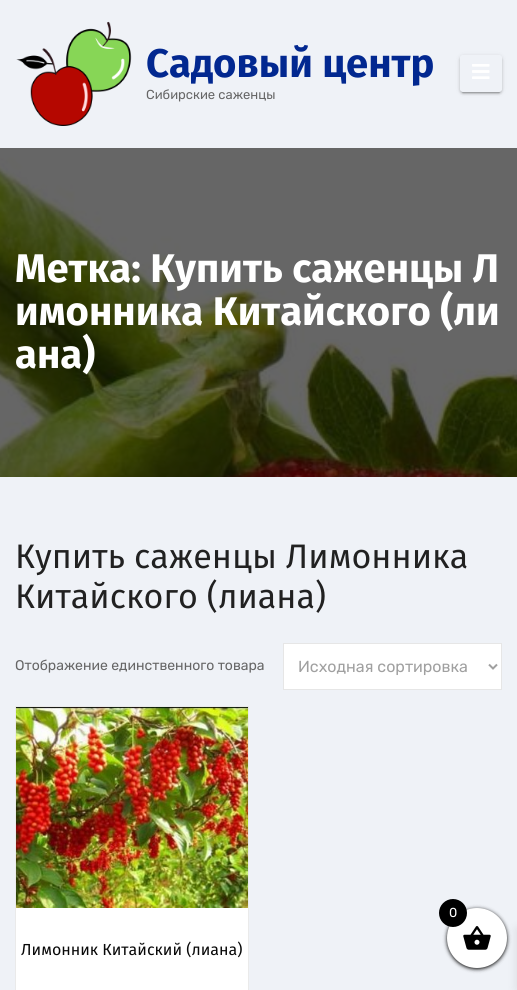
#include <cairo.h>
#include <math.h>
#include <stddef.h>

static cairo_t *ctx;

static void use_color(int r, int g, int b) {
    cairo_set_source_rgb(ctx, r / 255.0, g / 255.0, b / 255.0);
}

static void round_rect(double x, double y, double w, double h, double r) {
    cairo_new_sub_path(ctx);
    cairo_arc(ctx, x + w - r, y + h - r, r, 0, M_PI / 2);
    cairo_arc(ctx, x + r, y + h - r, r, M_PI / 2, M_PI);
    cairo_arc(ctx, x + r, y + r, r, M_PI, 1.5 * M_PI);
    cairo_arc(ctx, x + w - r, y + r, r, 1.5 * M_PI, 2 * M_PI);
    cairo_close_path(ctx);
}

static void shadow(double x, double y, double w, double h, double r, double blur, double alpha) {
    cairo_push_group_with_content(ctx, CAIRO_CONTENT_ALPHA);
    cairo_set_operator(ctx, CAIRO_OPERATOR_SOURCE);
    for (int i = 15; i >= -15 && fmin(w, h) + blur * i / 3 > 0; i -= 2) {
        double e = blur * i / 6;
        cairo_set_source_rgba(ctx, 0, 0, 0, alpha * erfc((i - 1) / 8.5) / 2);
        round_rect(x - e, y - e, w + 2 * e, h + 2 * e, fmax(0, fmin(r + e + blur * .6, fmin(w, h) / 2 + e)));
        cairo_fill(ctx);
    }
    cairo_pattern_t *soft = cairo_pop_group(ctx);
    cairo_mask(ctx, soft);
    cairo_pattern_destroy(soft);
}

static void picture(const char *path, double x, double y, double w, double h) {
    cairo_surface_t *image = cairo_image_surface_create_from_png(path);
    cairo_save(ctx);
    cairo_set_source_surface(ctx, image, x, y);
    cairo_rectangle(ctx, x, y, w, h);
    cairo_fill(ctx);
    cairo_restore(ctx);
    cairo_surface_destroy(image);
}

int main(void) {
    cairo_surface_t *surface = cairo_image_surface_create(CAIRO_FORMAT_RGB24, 517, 990);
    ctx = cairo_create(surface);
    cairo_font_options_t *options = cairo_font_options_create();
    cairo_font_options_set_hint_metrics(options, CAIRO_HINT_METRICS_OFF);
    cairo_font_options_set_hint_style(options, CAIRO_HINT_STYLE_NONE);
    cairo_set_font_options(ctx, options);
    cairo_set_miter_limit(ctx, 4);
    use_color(239, 242, 247);
    cairo_paint(ctx);
    picture("img1.png", 16, 21, 116, 105);
    cairo_select_font_face(ctx, "Fira Sans", CAIRO_FONT_SLANT_NORMAL, CAIRO_FONT_WEIGHT_BOLD);
    cairo_set_font_size(ctx, 40);
    use_color(2, 40, 144);
    cairo_move_to(ctx, 146, 77);
    cairo_show_text(ctx, "Cадовый центр");
    cairo_select_font_face(ctx, "Rubik", CAIRO_FONT_SLANT_NORMAL, CAIRO_FONT_WEIGHT_NORMAL);
    cairo_set_font_size(ctx, 13);
    use_color(102, 102, 102);
    cairo_move_to(ctx, 146, 99);
    cairo_show_text(ctx, "Сибирские саженцы");
    cairo_save(ctx);
    cairo_set_fill_rule(ctx, CAIRO_FILL_RULE_EVEN_ODD);
    cairo_new_path(ctx);
    cairo_move_to(ctx, 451, 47);
    cairo_line_to(ctx, 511, 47);
    cairo_line_to(ctx, 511, 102);
    cairo_line_to(ctx, 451, 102);
    cairo_close_path(ctx);
    cairo_move_to(ctx, 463, 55);
    cairo_line_to(ctx, 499, 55);
    cairo_curve_to(ctx, 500.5, 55, 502, 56.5, 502, 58);
    cairo_line_to(ctx, 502, 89);
    cairo_curve_to(ctx, 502, 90.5, 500.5, 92, 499, 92);
    cairo_line_to(ctx, 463, 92);
    cairo_curve_to(ctx, 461.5, 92, 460, 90.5, 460, 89);
    cairo_line_to(ctx, 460, 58);
    cairo_curve_to(ctx, 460, 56.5, 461.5, 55, 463, 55);
    cairo_close_path(ctx);
    cairo_clip(ctx);
    use_color(0, 0, 0);
    shadow(460, 56, 42, 37, 3, 2.5, 0.12);
    cairo_restore(ctx);
    cairo_save(ctx);
    cairo_set_fill_rule(ctx, CAIRO_FILL_RULE_EVEN_ODD);
    cairo_new_path(ctx);
    cairo_move_to(ctx, 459, 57);
    cairo_line_to(ctx, 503, 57);
    cairo_line_to(ctx, 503, 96);
    cairo_line_to(ctx, 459, 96);
    cairo_close_path(ctx);
    cairo_move_to(ctx, 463, 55);
    cairo_line_to(ctx, 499, 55);
    cairo_curve_to(ctx, 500.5, 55, 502, 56.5, 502, 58);
    cairo_line_to(ctx, 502, 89);
    cairo_curve_to(ctx, 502, 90.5, 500.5, 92, 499, 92);
    cairo_line_to(ctx, 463, 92);
    cairo_curve_to(ctx, 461.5, 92, 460, 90.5, 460, 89);
    cairo_line_to(ctx, 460, 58);
    cairo_curve_to(ctx, 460, 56.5, 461.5, 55, 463, 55);
    cairo_close_path(ctx);
    cairo_clip(ctx);
    use_color(0, 0, 0);
    shadow(462, 60, 38, 33, 1, 0.5, 0.2);
    cairo_restore(ctx);
    cairo_save(ctx);
    cairo_set_fill_rule(ctx, CAIRO_FILL_RULE_EVEN_ODD);
    cairo_new_path(ctx);
    cairo_move_to(ctx, 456, 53);
    cairo_line_to(ctx, 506, 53);
    cairo_line_to(ctx, 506, 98);
    cairo_line_to(ctx, 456, 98);
    cairo_close_path(ctx);
    cairo_move_to(ctx, 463, 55);
    cairo_line_to(ctx, 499, 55);
    cairo_curve_to(ctx, 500.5, 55, 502, 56.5, 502, 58);
    cairo_line_to(ctx, 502, 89);
    cairo_curve_to(ctx, 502, 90.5, 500.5, 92, 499, 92);
    cairo_line_to(ctx, 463, 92);
    cairo_curve_to(ctx, 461.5, 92, 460, 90.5, 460, 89);
    cairo_line_to(ctx, 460, 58);
    cairo_curve_to(ctx, 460, 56.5, 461.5, 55, 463, 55);
    cairo_close_path(ctx);
    cairo_clip(ctx);
    use_color(0, 0, 0);
    shadow(460, 57, 42, 37, 3, 1, 0.14);
    cairo_restore(ctx);
    picture("img2.png", 472, 64, 18, 15);
    picture("img3.png", 0, 148, 517, 329);
    cairo_select_font_face(ctx, "Fira Sans", CAIRO_FONT_SLANT_NORMAL, CAIRO_FONT_WEIGHT_BOLD);
    cairo_set_font_size(ctx, 40);
    use_color(255, 255, 255);
    cairo_move_to(ctx, 15, 282);
    cairo_show_text(ctx, "Метка: Купить саженцы Л");
    cairo_move_to(ctx, 15, 325);
    cairo_show_text(ctx, "имонника Китайского (ли");
    cairo_move_to(ctx, 15, 368);
    cairo_show_text(ctx, "ана)");
    cairo_select_font_face(ctx, "Fira Sans", CAIRO_FONT_SLANT_NORMAL, CAIRO_FONT_WEIGHT_NORMAL);
    cairo_set_font_size(ctx, 34);
    use_color(33, 33, 33);
    cairo_move_to(ctx, 15, 568);
    cairo_show_text(ctx, "Купить саженцы Лимонника");
    cairo_move_to(ctx, 15, 608);
    cairo_show_text(ctx, "Китайского (лиана)");
    cairo_select_font_face(ctx, "Rubik", CAIRO_FONT_SLANT_NORMAL, CAIRO_FONT_WEIGHT_NORMAL);
    cairo_set_font_size(ctx, 14);
    use_color(102, 102, 102);
    cairo_move_to(ctx, 15, 670);
    cairo_show_text(ctx, "Отображение единственного товара");
    use_color(255, 255, 255);
    cairo_rectangle(ctx, 283.5, 643.5, 218, 46);
    cairo_fill_preserve(ctx);
    use_color(230, 230, 230);
    cairo_set_line_width(ctx, 1);
    cairo_stroke(ctx);
    cairo_new_path(ctx);
    cairo_move_to(ctx, 489, 664.5);
    cairo_line_to(ctx, 493, 668.5);
    cairo_line_to(ctx, 497, 664.5);
    use_color(160, 160, 160);
    cairo_set_line_width(ctx, 2);
    cairo_stroke(ctx);
    cairo_set_font_size(ctx, 16);
    cairo_move_to(ctx, 298, 672);
    cairo_show_text(ctx, "Исходная сортировка");
    use_color(255, 255, 255);
    cairo_rectangle(ctx, 16, 908, 232, 82);
    cairo_fill(ctx);
    cairo_rectangle(ctx, 15.5, 706.5, 233, 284);
    use_color(234, 234, 234);
    cairo_set_line_width(ctx, 1);
    cairo_stroke(ctx);
    picture("img4.png", 16, 707, 232, 201);
    cairo_select_font_face(ctx, "Fira Sans", CAIRO_FONT_SLANT_NORMAL, CAIRO_FONT_WEIGHT_NORMAL);
    use_color(8, 8, 8);
    cairo_move_to(ctx, 21, 955);
    cairo_show_text(ctx, "Лимонник Китайский (лиана)");
    use_color(0, 0, 0);
    shadow(447, 909, 60, 60, 30, 2, 1);
    shadow(517, 929, 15, 60, 0, 5, 0.1);
    use_color(255, 255, 255);
    cairo_arc(ctx, 477, 938, 30, 0, 2 * M_PI);
    cairo_fill(ctx);
    picture("img5.png", 463, 926, 28, 24);
    use_color(0, 0, 0);
    cairo_arc(ctx, 453, 913, 14, 0, 2 * M_PI);
    cairo_fill(ctx);
    cairo_select_font_face(ctx, "Rubik", CAIRO_FONT_SLANT_NORMAL, CAIRO_FONT_WEIGHT_NORMAL);
    cairo_set_font_size(ctx, 13);
    use_color(255, 255, 255);
    cairo_move_to(ctx, 449, 917);
    cairo_show_text(ctx, "0");
    cairo_surface_write_to_png(surface, "result.png");
    cairo_font_options_destroy(options);
    cairo_destroy(ctx);
    cairo_surface_destroy(surface);
    return 0;
}
